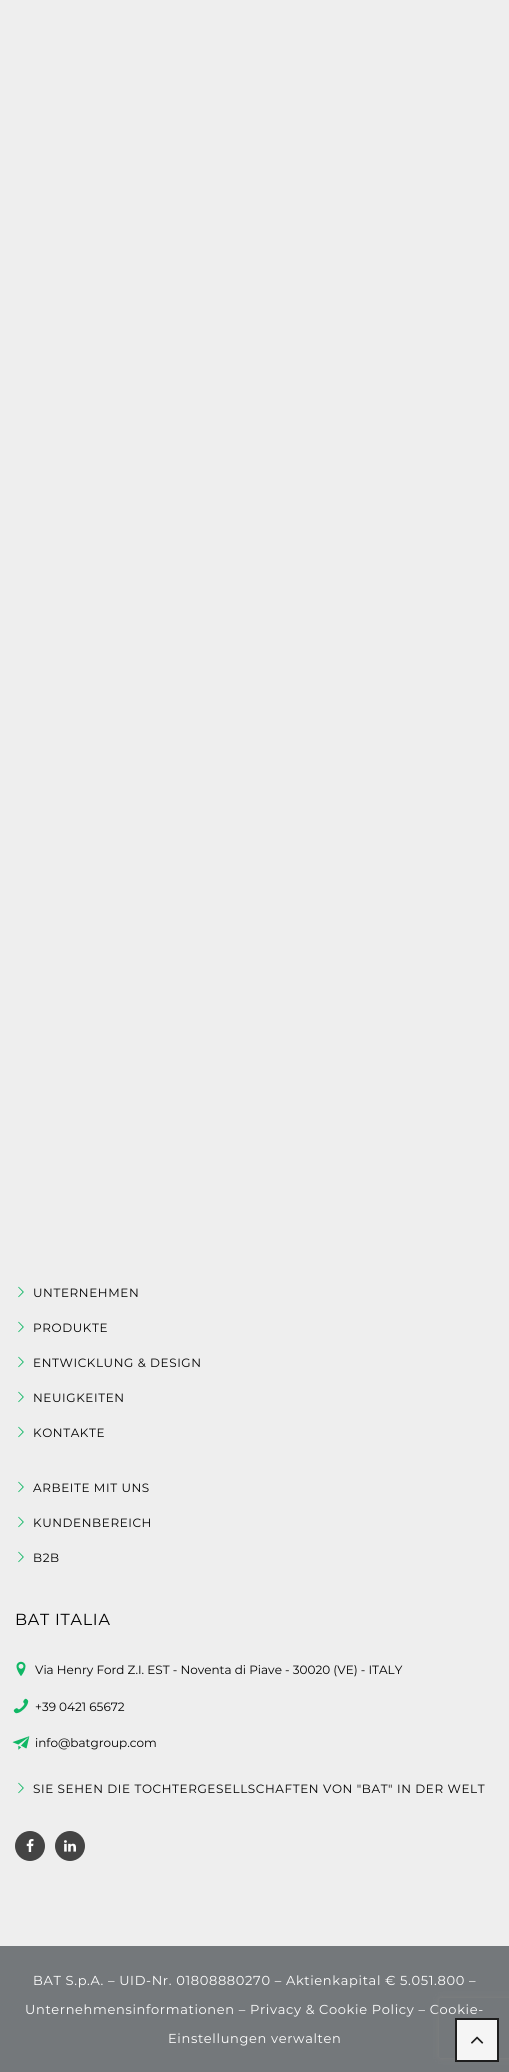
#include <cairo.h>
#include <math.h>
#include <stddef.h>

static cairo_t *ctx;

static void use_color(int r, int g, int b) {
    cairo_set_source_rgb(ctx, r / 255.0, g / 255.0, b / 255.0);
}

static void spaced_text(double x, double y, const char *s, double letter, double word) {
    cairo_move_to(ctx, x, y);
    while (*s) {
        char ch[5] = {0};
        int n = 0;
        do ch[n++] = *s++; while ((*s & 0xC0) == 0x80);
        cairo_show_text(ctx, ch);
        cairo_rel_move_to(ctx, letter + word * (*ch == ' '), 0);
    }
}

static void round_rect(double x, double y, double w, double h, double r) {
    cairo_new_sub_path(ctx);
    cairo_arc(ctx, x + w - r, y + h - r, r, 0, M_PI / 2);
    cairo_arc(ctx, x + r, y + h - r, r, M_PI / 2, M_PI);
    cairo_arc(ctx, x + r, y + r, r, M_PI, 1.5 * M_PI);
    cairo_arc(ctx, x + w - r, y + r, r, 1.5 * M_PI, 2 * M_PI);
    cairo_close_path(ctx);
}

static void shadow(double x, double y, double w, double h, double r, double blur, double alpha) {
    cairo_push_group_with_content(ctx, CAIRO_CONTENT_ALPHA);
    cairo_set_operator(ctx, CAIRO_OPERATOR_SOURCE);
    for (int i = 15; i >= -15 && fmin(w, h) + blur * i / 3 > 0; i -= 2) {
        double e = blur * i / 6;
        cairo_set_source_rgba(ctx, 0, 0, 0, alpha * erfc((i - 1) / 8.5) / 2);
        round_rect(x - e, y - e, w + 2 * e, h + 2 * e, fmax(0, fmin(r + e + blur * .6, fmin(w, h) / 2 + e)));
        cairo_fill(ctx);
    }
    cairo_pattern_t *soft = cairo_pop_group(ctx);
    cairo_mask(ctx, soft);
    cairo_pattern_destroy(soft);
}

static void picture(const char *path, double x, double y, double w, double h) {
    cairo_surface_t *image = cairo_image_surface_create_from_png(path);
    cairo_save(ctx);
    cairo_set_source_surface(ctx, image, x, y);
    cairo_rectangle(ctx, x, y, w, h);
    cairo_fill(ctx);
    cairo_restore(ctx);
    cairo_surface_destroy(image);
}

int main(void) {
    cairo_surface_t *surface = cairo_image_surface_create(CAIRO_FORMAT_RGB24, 509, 2072);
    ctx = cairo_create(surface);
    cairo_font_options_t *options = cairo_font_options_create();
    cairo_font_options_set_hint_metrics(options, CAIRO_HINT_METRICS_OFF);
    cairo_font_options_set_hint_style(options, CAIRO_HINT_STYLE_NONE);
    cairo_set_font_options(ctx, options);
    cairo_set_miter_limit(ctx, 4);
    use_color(238, 238, 238);
    cairo_paint(ctx);
    picture("img1.png", 18, 1286, 6, 12);
    cairo_select_font_face(ctx, "Montserrat", CAIRO_FONT_SLANT_NORMAL, CAIRO_FONT_WEIGHT_NORMAL);
    cairo_set_font_size(ctx, 12);
    use_color(0, 0, 0);
    spaced_text(33, 1297, "UNTERNEHMEN", 0.6, 0);
    picture("img1.png", 18, 1321, 6, 12);
    spaced_text(33, 1332, "PRODUKTE", 0.6, 0);
    picture("img1.png", 18, 1356, 6, 12);
    spaced_text(33, 1367, "ENTWICKLUNG & DESIGN", 0.6, 0);
    picture("img1.png", 18, 1391, 6, 12);
    spaced_text(33, 1402, "NEUIGKEITEN", 0.6, 0);
    picture("img1.png", 18, 1426, 6, 12);
    spaced_text(33, 1437, "KONTAKTE", 0.6, 0);
    picture("img1.png", 18, 1481, 6, 12);
    spaced_text(33, 1492, "ARBEITE MIT UNS", 0.6, 0);
    picture("img1.png", 18, 1516, 6, 12);
    spaced_text(33, 1527, "KUNDENBEREICH", 0.6, 0);
    picture("img1.png", 18, 1551, 6, 12);
    spaced_text(33, 1562, "B2B", 0.6, 0);
    cairo_set_font_size(ctx, 16);
    spaced_text(15, 1625, "BAT ITALIA", 0.75, 0);
    picture("img2.png", 16, 1661, 10, 15);
    cairo_set_font_size(ctx, 12);
    cairo_move_to(ctx, 35, 1674);
    cairo_show_text(ctx, "Via Henry Ford Z.I. EST - Noventa di Piave - 30020 (VE) - ITALY");
    picture("img3.png", 13, 1698, 16, 16);
    cairo_move_to(ctx, 35, 1711);
    cairo_show_text(ctx, "+39 0421 65672");
    picture("img4.png", 12, 1736, 18, 14);
    cairo_move_to(ctx, 35, 1747);
    cairo_show_text(ctx, "info@batgroup.com");
    picture("img1.png", 18, 1782, 6, 12);
    spaced_text(33, 1793, "SIE SEHEN DIE TOCHTERGESELLSCHAFTEN VON \"BAT\" IN DER WELT", 0.6, 0);
    use_color(68, 68, 68);
    cairo_new_path(ctx);
    cairo_arc(ctx, 30, 1846, 15, 0, 2 * M_PI);
    cairo_fill(ctx);
    picture("img5.png", 26, 1839, 8, 13);
    cairo_arc(ctx, 70, 1846, 15, 0, 2 * M_PI);
    cairo_fill(ctx);
    picture("img6.png", 64, 1840, 12, 12);
    use_color(116, 120, 123);
    cairo_rectangle(ctx, 0, 1946, 509, 126);
    cairo_fill(ctx);
    cairo_set_font_size(ctx, 13);
    use_color(255, 255, 255);
    spaced_text(33, 1985, "BAT S.p.A. – UID-Nr. 01808880270 – Aktienkapital € 5.051.800 –", 0.65, 0);
    spaced_text(25, 2014, "Unternehmensinformationen – Privacy & Cookie Policy – Cookie-", 0.65, 0);
    spaced_text(168, 2043, "Einstellungen verwalten", 0.65, 0);
    cairo_save(ctx);
    cairo_set_fill_rule(ctx, CAIRO_FILL_RULE_EVEN_ODD);
    cairo_new_path(ctx);
    cairo_move_to(ctx, 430, 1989);
    cairo_line_to(ctx, 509, 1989);
    cairo_line_to(ctx, 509, 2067);
    cairo_line_to(ctx, 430, 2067);
    cairo_close_path(ctx);
    cairo_move_to(ctx, 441, 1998);
    cairo_line_to(ctx, 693, 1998);
    cairo_curve_to(ctx, 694, 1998, 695, 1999, 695, 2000);
    cairo_line_to(ctx, 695, 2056);
    cairo_curve_to(ctx, 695, 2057, 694, 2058, 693, 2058);
    cairo_line_to(ctx, 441, 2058);
    cairo_curve_to(ctx, 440, 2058, 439, 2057, 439, 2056);
    cairo_line_to(ctx, 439, 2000);
    cairo_curve_to(ctx, 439, 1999, 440, 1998, 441, 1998);
    cairo_close_path(ctx);
    cairo_clip(ctx);
    use_color(128, 128, 128);
    shadow(439, 1998, 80, 60, 2, 2.5, 1);
    cairo_restore(ctx);
    use_color(245, 245, 245);
    cairo_rectangle(ctx, 456, 2019, 42, 42);
    cairo_fill_preserve(ctx);
    use_color(30, 30, 30);
    cairo_stroke(ctx);
    picture("img7.png", 471, 2036, 13, 8);
    cairo_surface_write_to_png(surface, "result.png");
    cairo_font_options_destroy(options);
    cairo_destroy(ctx);
    cairo_surface_destroy(surface);
    return 0;
}
